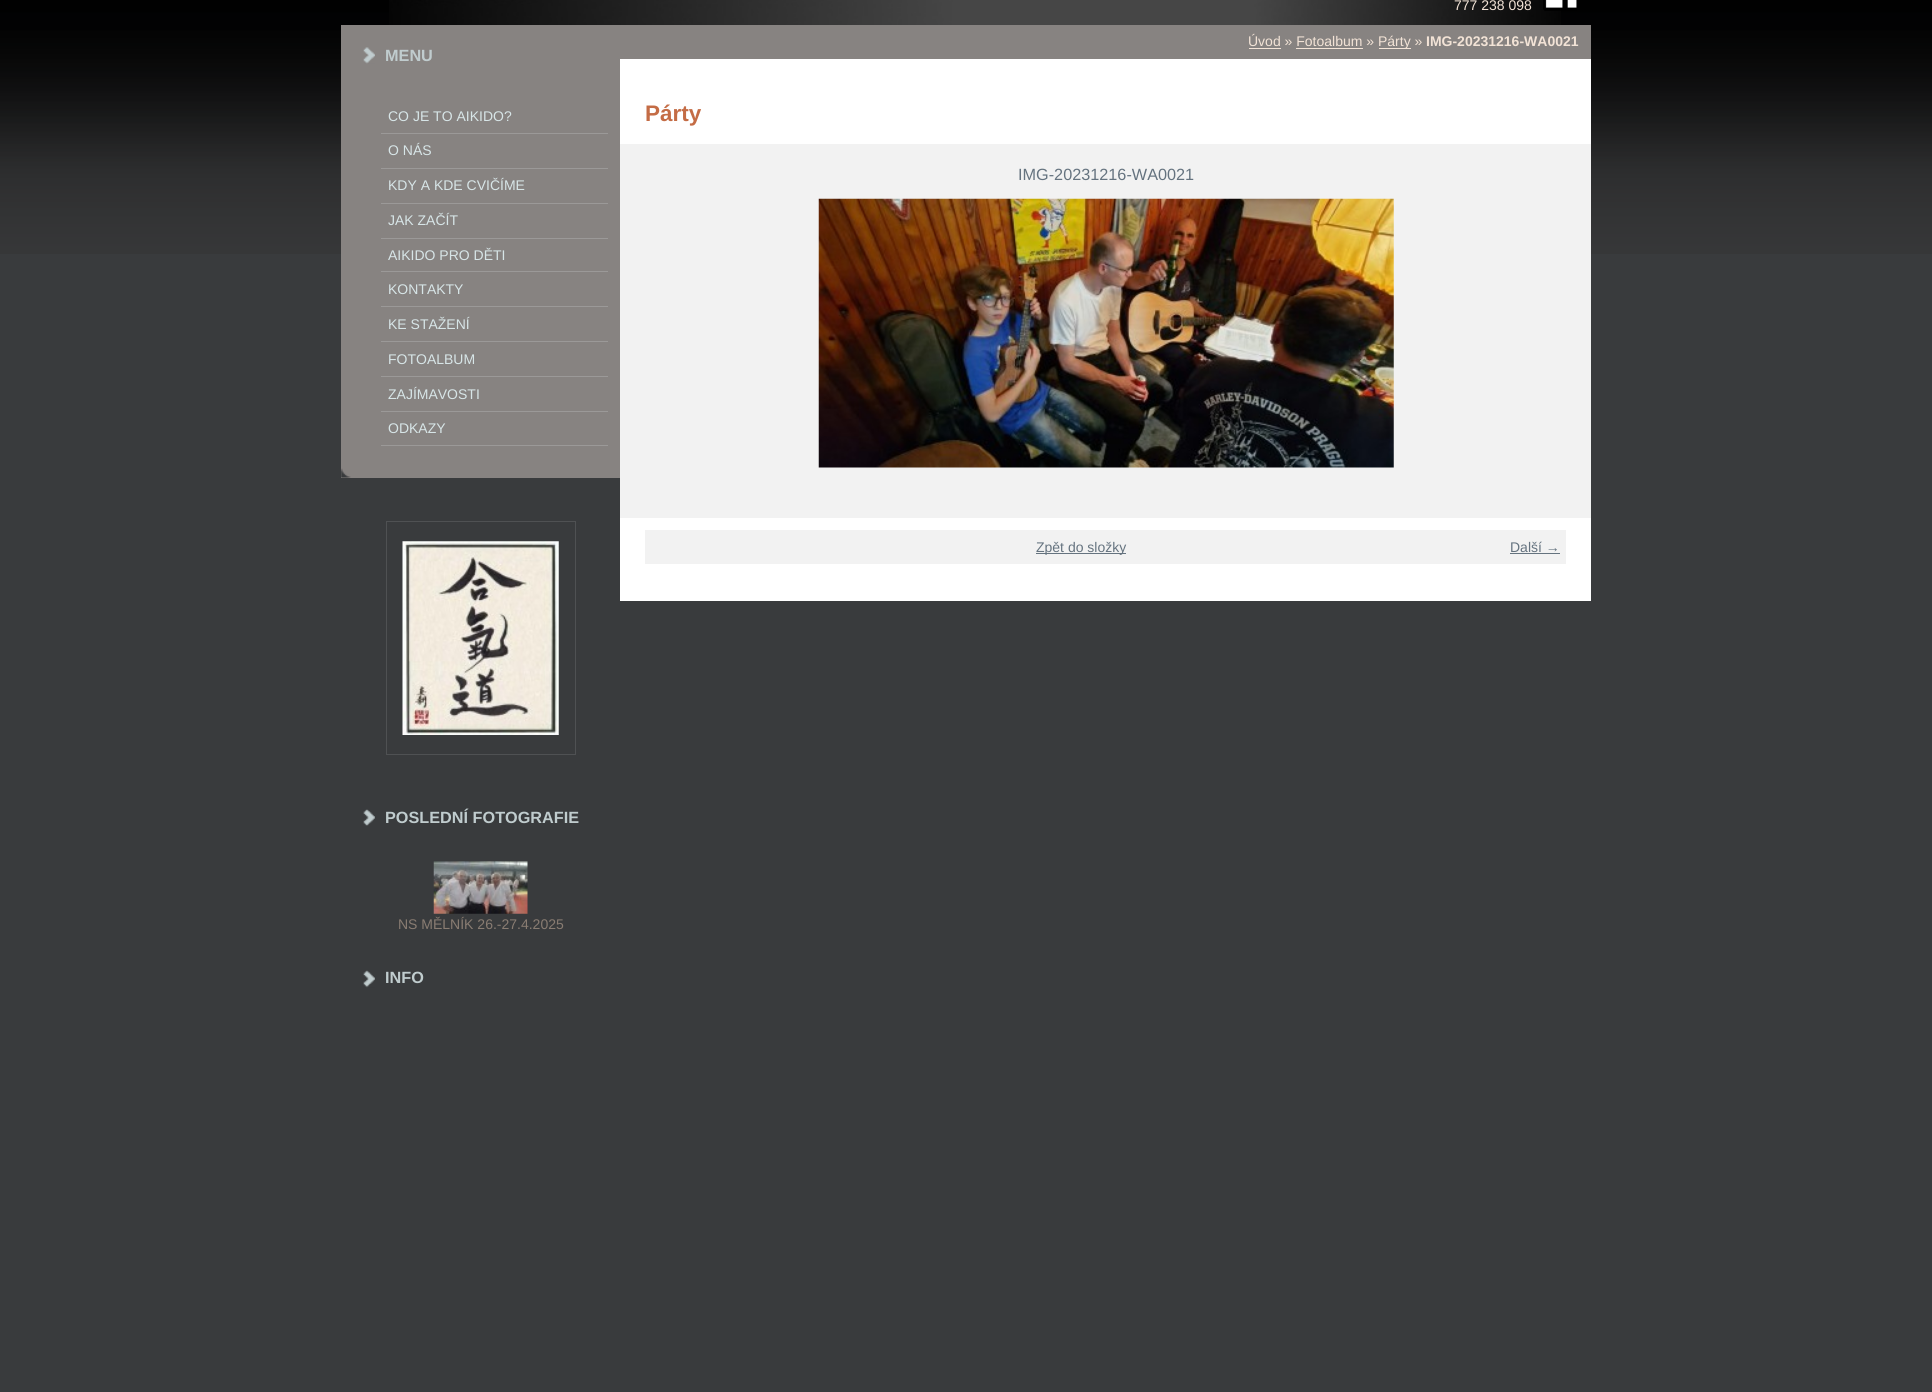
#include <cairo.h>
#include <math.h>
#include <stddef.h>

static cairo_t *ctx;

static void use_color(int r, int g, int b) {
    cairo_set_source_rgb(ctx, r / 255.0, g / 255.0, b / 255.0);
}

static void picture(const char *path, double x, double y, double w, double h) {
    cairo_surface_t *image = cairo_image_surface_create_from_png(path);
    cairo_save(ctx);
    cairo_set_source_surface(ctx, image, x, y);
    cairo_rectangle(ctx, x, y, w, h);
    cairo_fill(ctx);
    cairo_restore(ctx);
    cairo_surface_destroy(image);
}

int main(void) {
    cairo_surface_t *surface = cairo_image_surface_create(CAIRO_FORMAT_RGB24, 1932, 1392);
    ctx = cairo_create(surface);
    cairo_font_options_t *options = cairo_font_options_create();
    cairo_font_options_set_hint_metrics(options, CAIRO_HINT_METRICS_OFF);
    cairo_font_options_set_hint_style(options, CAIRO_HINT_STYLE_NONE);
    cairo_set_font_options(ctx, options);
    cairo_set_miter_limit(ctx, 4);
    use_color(57, 59, 61);
    cairo_paint(ctx);
    picture("img1.png", 0, 0, 1932, 254);
    picture("img2.png", 389, 0, 1172, 25);
    cairo_select_font_face(ctx, "Liberation Sans", CAIRO_FONT_SLANT_NORMAL, CAIRO_FONT_WEIGHT_NORMAL);
    cairo_set_font_size(ctx, 14);
    use_color(242, 227, 214);
    cairo_move_to(ctx, 1454, 10);
    cairo_show_text(ctx, "777 238 098");
    picture("img3.png", 1543, 0, 34, 11);
    use_color(135, 131, 129);
    cairo_rectangle(ctx, 341, 25, 279, 453);
    cairo_fill(ctx);
    picture("img4.png", 363, 47, 12, 17);
    cairo_select_font_face(ctx, "Liberation Sans", CAIRO_FONT_SLANT_NORMAL, CAIRO_FONT_WEIGHT_BOLD);
    cairo_set_font_size(ctx, 16.25);
    use_color(192, 204, 206);
    cairo_move_to(ctx, 385, 61);
    cairo_show_text(ctx, "MENU");
    picture("img5.png", 341, 468, 10, 10);
    use_color(155, 153, 152);
    cairo_rectangle(ctx, 381, 133, 227, 1);
    cairo_fill(ctx);
    cairo_select_font_face(ctx, "Liberation Sans", CAIRO_FONT_SLANT_NORMAL, CAIRO_FONT_WEIGHT_NORMAL);
    cairo_set_font_size(ctx, 14);
    use_color(215, 229, 231);
    cairo_move_to(ctx, 388, 121);
    cairo_show_text(ctx, "CO JE TO AIKIDO?");
    use_color(155, 153, 152);
    cairo_rectangle(ctx, 381, 168, 227, 1);
    cairo_fill(ctx);
    use_color(215, 229, 231);
    cairo_move_to(ctx, 388, 155);
    cairo_show_text(ctx, "O NÁS");
    use_color(155, 153, 152);
    cairo_rectangle(ctx, 381, 203, 227, 1);
    cairo_fill(ctx);
    use_color(215, 229, 231);
    cairo_move_to(ctx, 388, 190);
    cairo_show_text(ctx, "KDY A KDE CVIČÍME");
    use_color(155, 153, 152);
    cairo_rectangle(ctx, 381, 238, 227, 1);
    cairo_fill(ctx);
    use_color(215, 229, 231);
    cairo_move_to(ctx, 388, 225);
    cairo_show_text(ctx, "JAK ZAČÍT");
    use_color(155, 153, 152);
    cairo_rectangle(ctx, 381, 271, 227, 1);
    cairo_fill(ctx);
    use_color(215, 229, 231);
    cairo_move_to(ctx, 388, 260);
    cairo_show_text(ctx, "AIKIDO PRO DĚTI");
    use_color(155, 153, 152);
    cairo_rectangle(ctx, 381, 306, 227, 1);
    cairo_fill(ctx);
    use_color(215, 229, 231);
    cairo_move_to(ctx, 388, 294);
    cairo_show_text(ctx, "KONTAKTY");
    use_color(155, 153, 152);
    cairo_rectangle(ctx, 381, 341, 227, 1);
    cairo_fill(ctx);
    use_color(215, 229, 231);
    cairo_move_to(ctx, 388, 329);
    cairo_show_text(ctx, "KE STAŽENÍ");
    use_color(155, 153, 152);
    cairo_rectangle(ctx, 381, 376, 227, 1);
    cairo_fill(ctx);
    use_color(215, 229, 231);
    cairo_move_to(ctx, 388, 364);
    cairo_show_text(ctx, "FOTOALBUM");
    use_color(155, 153, 152);
    cairo_rectangle(ctx, 381, 411, 227, 1);
    cairo_fill(ctx);
    use_color(215, 229, 231);
    cairo_move_to(ctx, 388, 399);
    cairo_show_text(ctx, "ZAJÍMAVOSTI");
    use_color(155, 153, 152);
    cairo_rectangle(ctx, 381, 445, 227, 1);
    cairo_fill(ctx);
    use_color(215, 229, 231);
    cairo_move_to(ctx, 388, 433);
    cairo_show_text(ctx, "ODKAZY");
    cairo_rectangle(ctx, 386.5, 521.5, 189, 233);
    use_color(79, 81, 83);
    cairo_set_line_width(ctx, 1);
    cairo_stroke(ctx);
    picture("img6.png", 402, 541, 157, 194);
    picture("img7.png", 363, 809, 12, 17);
    cairo_select_font_face(ctx, "Liberation Sans", CAIRO_FONT_SLANT_NORMAL, CAIRO_FONT_WEIGHT_BOLD);
    cairo_set_font_size(ctx, 16.25);
    use_color(192, 204, 206);
    cairo_move_to(ctx, 385, 823);
    cairo_show_text(ctx, "POSLEDNÍ FOTOGRAFIE");
    picture("img8.png", 433, 861, 95, 53);
    cairo_select_font_face(ctx, "Liberation Sans", CAIRO_FONT_SLANT_NORMAL, CAIRO_FONT_WEIGHT_NORMAL);
    cairo_set_font_size(ctx, 14);
    use_color(137, 124, 114);
    cairo_move_to(ctx, 398, 929);
    cairo_show_text(ctx, "NS MĚLNÍK 26.-27.4.2025");
    picture("img9.png", 363, 970, 12, 18);
    cairo_select_font_face(ctx, "Liberation Sans", CAIRO_FONT_SLANT_NORMAL, CAIRO_FONT_WEIGHT_BOLD);
    cairo_set_font_size(ctx, 16.25);
    use_color(192, 204, 206);
    cairo_move_to(ctx, 385, 983);
    cairo_show_text(ctx, "INFO");
    use_color(255, 255, 255);
    cairo_rectangle(ctx, 620, 59, 971, 542);
    cairo_fill(ctx);
    use_color(135, 131, 129);
    cairo_rectangle(ctx, 620, 25, 971, 34);
    cairo_fill(ctx);
    cairo_select_font_face(ctx, "Liberation Sans", CAIRO_FONT_SLANT_NORMAL, CAIRO_FONT_WEIGHT_NORMAL);
    cairo_set_font_size(ctx, 14);
    use_color(242, 227, 214);
    cairo_move_to(ctx, 1248, 46);
    cairo_show_text(ctx, "Úvod » Fotoalbum »");
    cairo_rectangle(ctx, 1249, 48, 32, 1);
    cairo_fill(ctx);
    cairo_rectangle(ctx, 1379, 48, 32, 1);
    cairo_fill(ctx);
    cairo_move_to(ctx, 1378, 46);
    cairo_show_text(ctx, "Párty »");
    cairo_select_font_face(ctx, "Liberation Sans", CAIRO_FONT_SLANT_NORMAL, CAIRO_FONT_WEIGHT_BOLD);
    cairo_move_to(ctx, 1426, 46);
    cairo_show_text(ctx, "IMG-20231216-WA0021");
    cairo_rectangle(ctx, 1296, 48, 67, 1);
    cairo_fill(ctx);
    cairo_set_font_size(ctx, 22.5);
    use_color(196, 108, 69);
    cairo_move_to(ctx, 645, 121);
    cairo_show_text(ctx, "Párty");
    use_color(242, 242, 242);
    cairo_rectangle(ctx, 620, 144, 971, 374);
    cairo_fill(ctx);
    cairo_select_font_face(ctx, "Liberation Sans", CAIRO_FONT_SLANT_NORMAL, CAIRO_FONT_WEIGHT_NORMAL);
    cairo_set_font_size(ctx, 16.25);
    use_color(101, 115, 127);
    cairo_move_to(ctx, 1018, 180);
    cairo_show_text(ctx, "IMG-20231216-WA0021");
    picture("img10.png", 818, 198, 576, 270);
    use_color(242, 242, 242);
    cairo_rectangle(ctx, 645, 530, 921, 34);
    cairo_fill(ctx);
    use_color(101, 115, 127);
    cairo_rectangle(ctx, 1036, 553, 90, 1);
    cairo_fill(ctx);
    cairo_set_font_size(ctx, 14);
    cairo_move_to(ctx, 1036, 552);
    cairo_show_text(ctx, "Zpět do složky");
    cairo_move_to(ctx, 1510, 552);
    cairo_show_text(ctx, "Další →");
    cairo_rectangle(ctx, 1510, 553, 50, 1);
    cairo_fill(ctx);
    cairo_surface_write_to_png(surface, "result.png");
    cairo_font_options_destroy(options);
    cairo_destroy(ctx);
    cairo_surface_destroy(surface);
    return 0;
}
